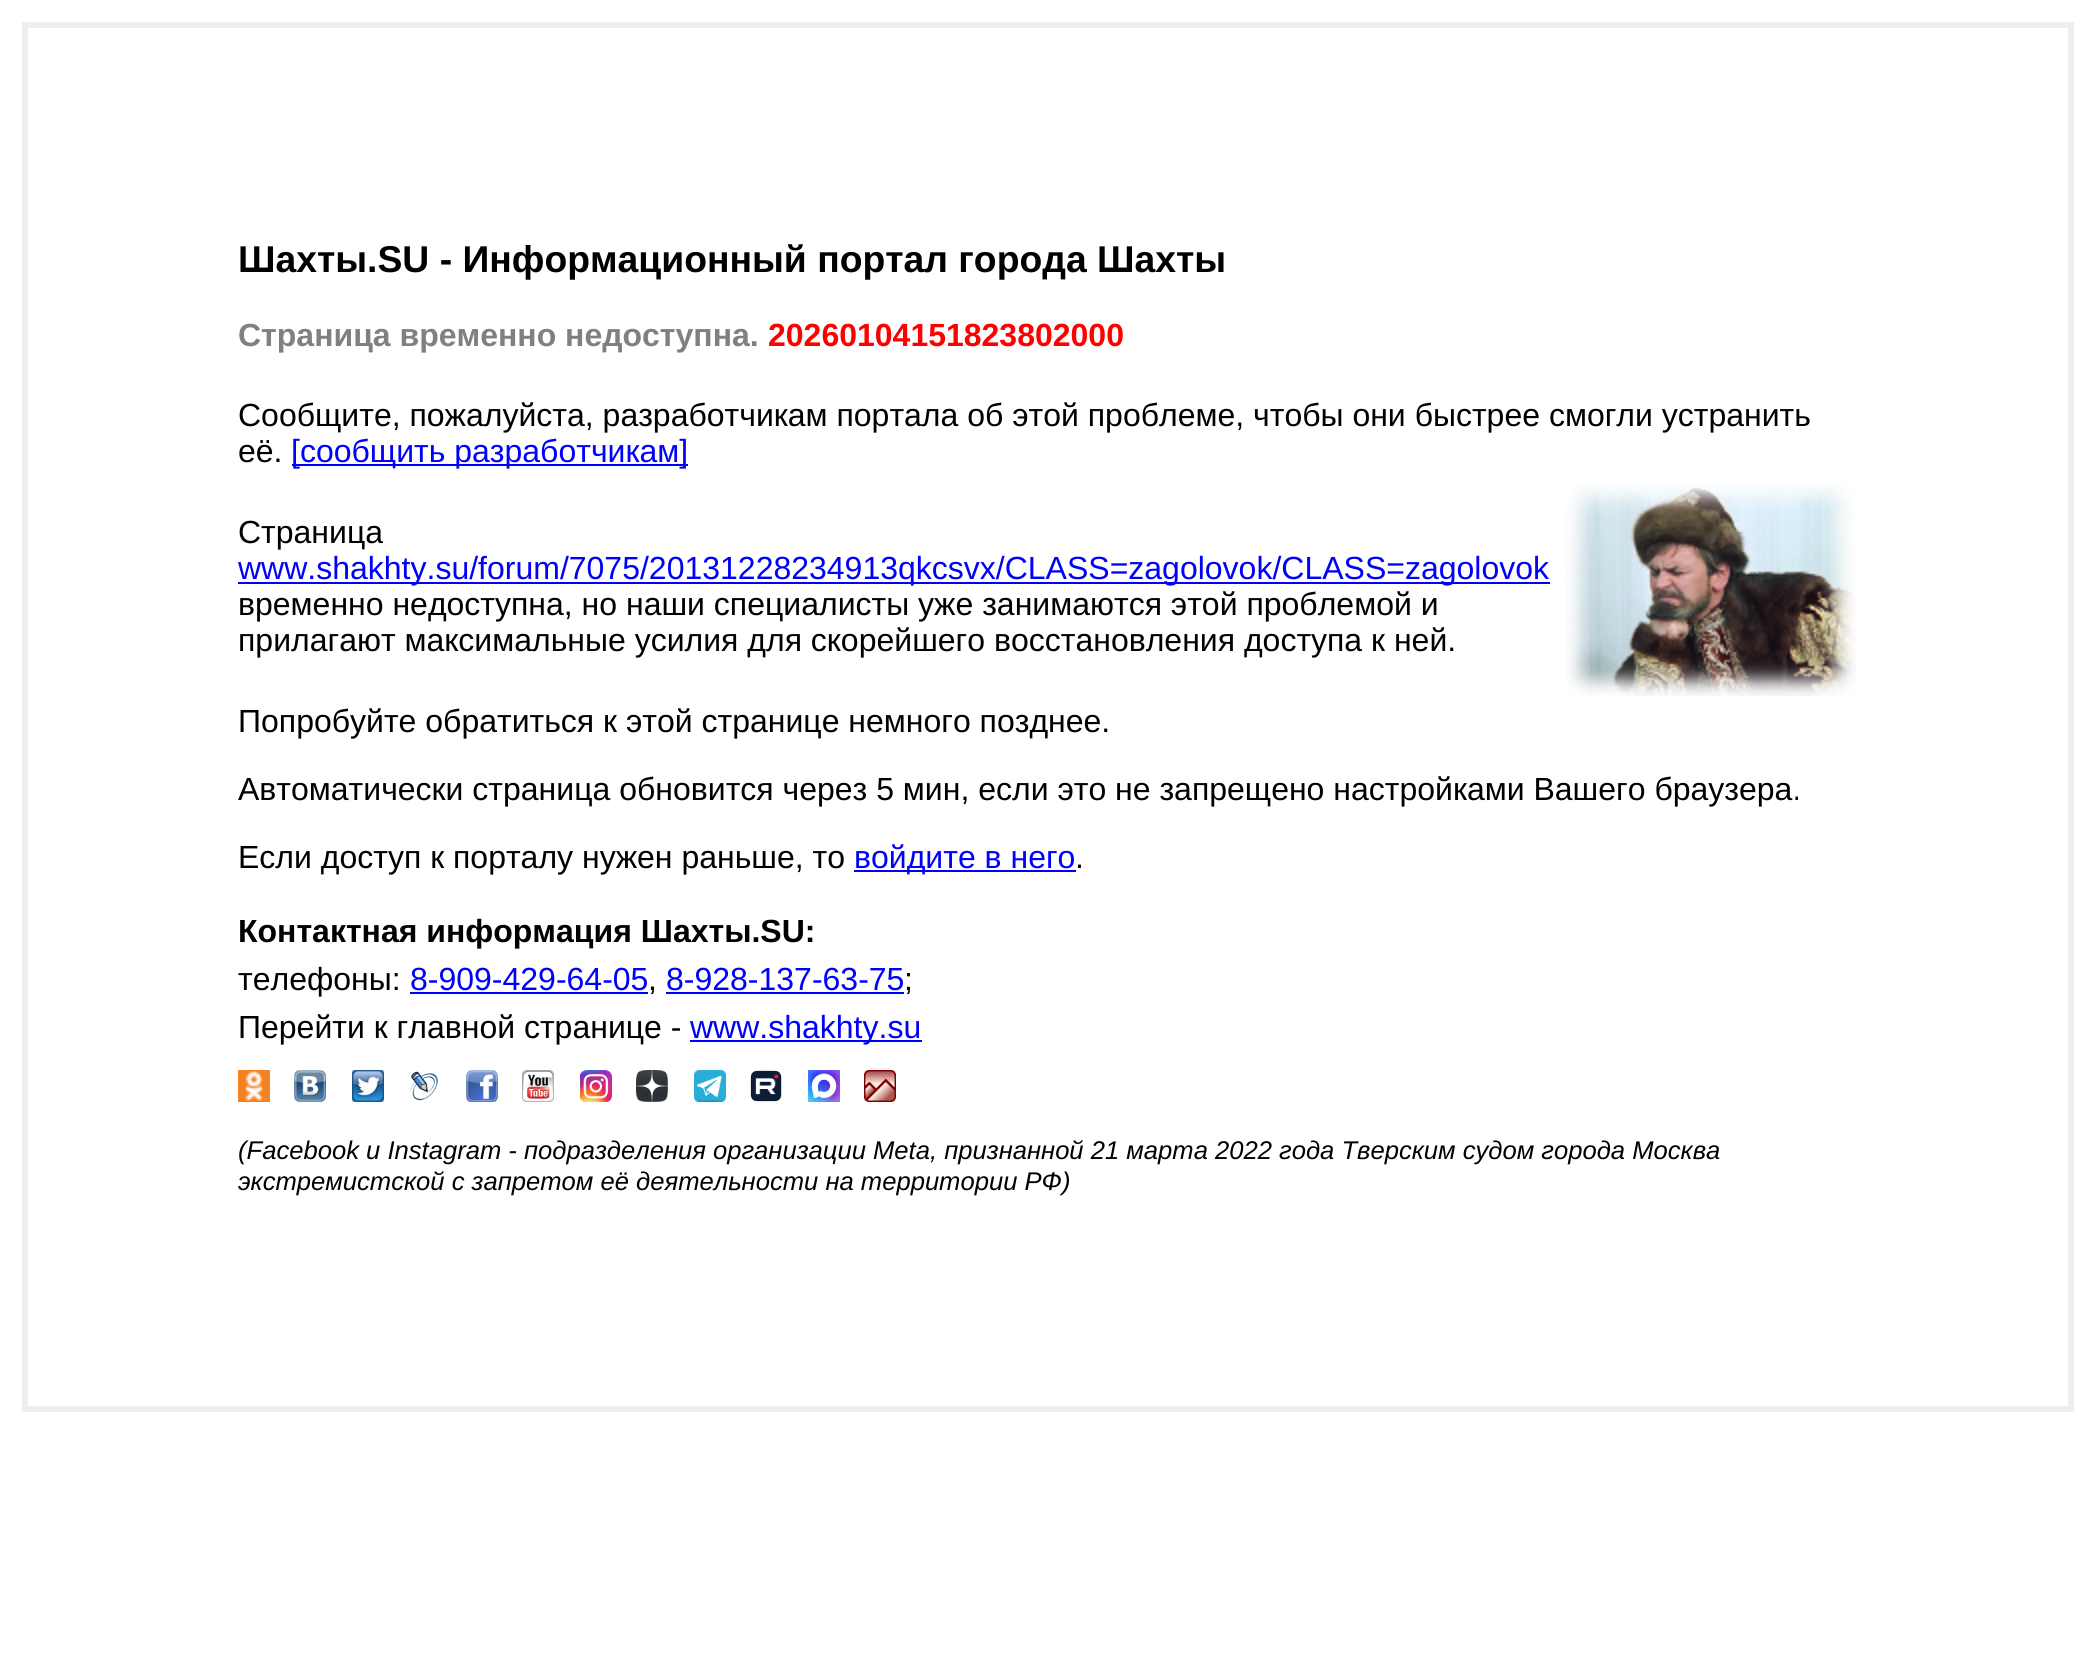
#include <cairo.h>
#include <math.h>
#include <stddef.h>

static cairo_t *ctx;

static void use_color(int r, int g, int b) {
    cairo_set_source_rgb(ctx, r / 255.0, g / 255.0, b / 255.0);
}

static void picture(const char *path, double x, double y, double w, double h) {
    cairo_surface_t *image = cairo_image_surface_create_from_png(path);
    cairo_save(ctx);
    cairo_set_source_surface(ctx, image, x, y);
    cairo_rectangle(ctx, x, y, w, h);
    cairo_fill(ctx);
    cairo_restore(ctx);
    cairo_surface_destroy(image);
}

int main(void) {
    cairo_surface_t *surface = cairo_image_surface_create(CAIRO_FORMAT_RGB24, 2077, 1657);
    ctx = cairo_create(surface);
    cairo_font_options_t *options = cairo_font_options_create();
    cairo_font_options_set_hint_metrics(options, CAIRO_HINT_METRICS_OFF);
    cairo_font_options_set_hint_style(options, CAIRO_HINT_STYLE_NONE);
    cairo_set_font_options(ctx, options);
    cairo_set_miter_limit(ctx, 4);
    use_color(255, 255, 255);
    cairo_paint(ctx);
    cairo_rectangle(ctx, 25, 25, 2046, 1384);
    use_color(238, 238, 238);
    cairo_set_line_width(ctx, 6);
    cairo_stroke(ctx);
    cairo_select_font_face(ctx, "Liberation Sans", CAIRO_FONT_SLANT_NORMAL, CAIRO_FONT_WEIGHT_BOLD);
    cairo_set_font_size(ctx, 37.3);
    use_color(0, 0, 0);
    cairo_move_to(ctx, 238, 272);
    cairo_show_text(ctx, "Шахты.SU - Информационный портал города Шахты");
    cairo_set_font_size(ctx, 32);
    use_color(128, 128, 128);
    cairo_move_to(ctx, 238, 346);
    cairo_show_text(ctx, "Страница временно недоступна.");
    use_color(255, 0, 0);
    cairo_move_to(ctx, 768, 346);
    cairo_show_text(ctx, "20260104151823802000");
    cairo_select_font_face(ctx, "Liberation Sans", CAIRO_FONT_SLANT_NORMAL, CAIRO_FONT_WEIGHT_NORMAL);
    use_color(0, 0, 0);
    cairo_move_to(ctx, 238, 426);
    cairo_show_text(ctx, "Сообщите, пожалуйста, разработчикам портала об этой проблеме, чтобы они быстрее смогли устранить");
    cairo_move_to(ctx, 238, 462);
    cairo_show_text(ctx, "её.");
    use_color(0, 0, 255);
    cairo_rectangle(ctx, 292, 464, 396, 2);
    cairo_fill(ctx);
    cairo_move_to(ctx, 291, 462);
    cairo_show_text(ctx, "[сообщить разработчикам]");
    use_color(0, 0, 0);
    cairo_move_to(ctx, 238, 543);
    cairo_show_text(ctx, "Страница");
    use_color(0, 0, 255);
    cairo_rectangle(ctx, 238, 582, 1312, 2);
    cairo_fill(ctx);
    cairo_move_to(ctx, 238, 579);
    cairo_show_text(ctx, "www.shakhty.su/forum/7075/20131228234913qkcsvx/CLASS=zagolovok/CLASS=zagolovok");
    use_color(0, 0, 0);
    cairo_move_to(ctx, 238, 615);
    cairo_show_text(ctx, "временно недоступна, но наши специалисты уже занимаются этой проблемой и");
    cairo_move_to(ctx, 238, 651);
    cairo_show_text(ctx, "прилагают максимальные усилия для скорейшего восстановления доступа к ней.");
    picture("img1.png", 1566, 483, 290, 213);
    cairo_move_to(ctx, 238, 732);
    cairo_show_text(ctx, "Попробуйте обратиться к этой странице немного позднее.");
    cairo_move_to(ctx, 238, 800);
    cairo_show_text(ctx, "Автоматически страница обновится через 5 мин, если это не запрещено настройками Вашего браузера.");
    cairo_move_to(ctx, 238, 868);
    cairo_show_text(ctx, "Если доступ к порталу нужен раньше, то");
    use_color(0, 0, 255);
    cairo_rectangle(ctx, 854, 870, 222, 2);
    cairo_fill(ctx);
    cairo_move_to(ctx, 854, 868);
    cairo_show_text(ctx, "войдите в него");
    use_color(0, 0, 0);
    cairo_move_to(ctx, 1075, 868);
    cairo_show_text(ctx, ".");
    cairo_select_font_face(ctx, "Liberation Sans", CAIRO_FONT_SLANT_NORMAL, CAIRO_FONT_WEIGHT_BOLD);
    cairo_move_to(ctx, 238, 942);
    cairo_show_text(ctx, "Контактная информация Шахты.SU:");
    cairo_select_font_face(ctx, "Liberation Sans", CAIRO_FONT_SLANT_NORMAL, CAIRO_FONT_WEIGHT_NORMAL);
    cairo_move_to(ctx, 238, 990);
    cairo_show_text(ctx, "телефоны:");
    use_color(0, 0, 255);
    cairo_move_to(ctx, 410, 990);
    cairo_show_text(ctx, "8-909-429-64-05");
    cairo_rectangle(ctx, 410, 992, 238, 2);
    cairo_fill(ctx);
    use_color(0, 0, 0);
    cairo_move_to(ctx, 648, 990);
    cairo_show_text(ctx, ",");
    use_color(0, 0, 255);
    cairo_move_to(ctx, 666, 990);
    cairo_show_text(ctx, "8-928-137-63-75");
    cairo_rectangle(ctx, 666, 992, 238, 2);
    cairo_fill(ctx);
    use_color(0, 0, 0);
    cairo_move_to(ctx, 904, 990);
    cairo_show_text(ctx, ";");
    cairo_move_to(ctx, 238, 1038);
    cairo_show_text(ctx, "Перейти к главной странице -");
    use_color(0, 0, 255);
    cairo_rectangle(ctx, 690, 1040, 232, 2);
    cairo_fill(ctx);
    cairo_move_to(ctx, 690, 1038);
    cairo_show_text(ctx, "www.shakhty.su");
    picture("img2.png", 238, 1070, 32, 32);
    picture("img3.png", 294, 1070, 32, 32);
    picture("img4.png", 352, 1070, 32, 32);
    picture("img5.png", 410, 1071, 28, 30);
    picture("img6.png", 466, 1070, 32, 32);
    picture("img7.png", 522, 1070, 32, 32);
    picture("img8.png", 580, 1070, 32, 32);
    picture("img9.png", 636, 1070, 32, 32);
    picture("img10.png", 694, 1070, 32, 32);
    picture("img11.png", 750, 1070, 32, 32);
    picture("img12.png", 808, 1070, 32, 32);
    picture("img13.png", 864, 1070, 32, 32);
    cairo_select_font_face(ctx, "Liberation Sans", CAIRO_FONT_SLANT_ITALIC, CAIRO_FONT_WEIGHT_NORMAL);
    cairo_set_font_size(ctx, 25.6);
    use_color(0, 0, 0);
    cairo_move_to(ctx, 238, 1159);
    cairo_show_text(ctx, "(Facebook и Instagram - подразделения организации Meta, признанной 21 марта 2022 года Тверским судом города Москва");
    cairo_move_to(ctx, 238, 1190);
    cairo_show_text(ctx, "экстремистской с запретом её деятельности на территории РФ)");
    cairo_surface_write_to_png(surface, "result.png");
    cairo_font_options_destroy(options);
    cairo_destroy(ctx);
    cairo_surface_destroy(surface);
    return 0;
}
